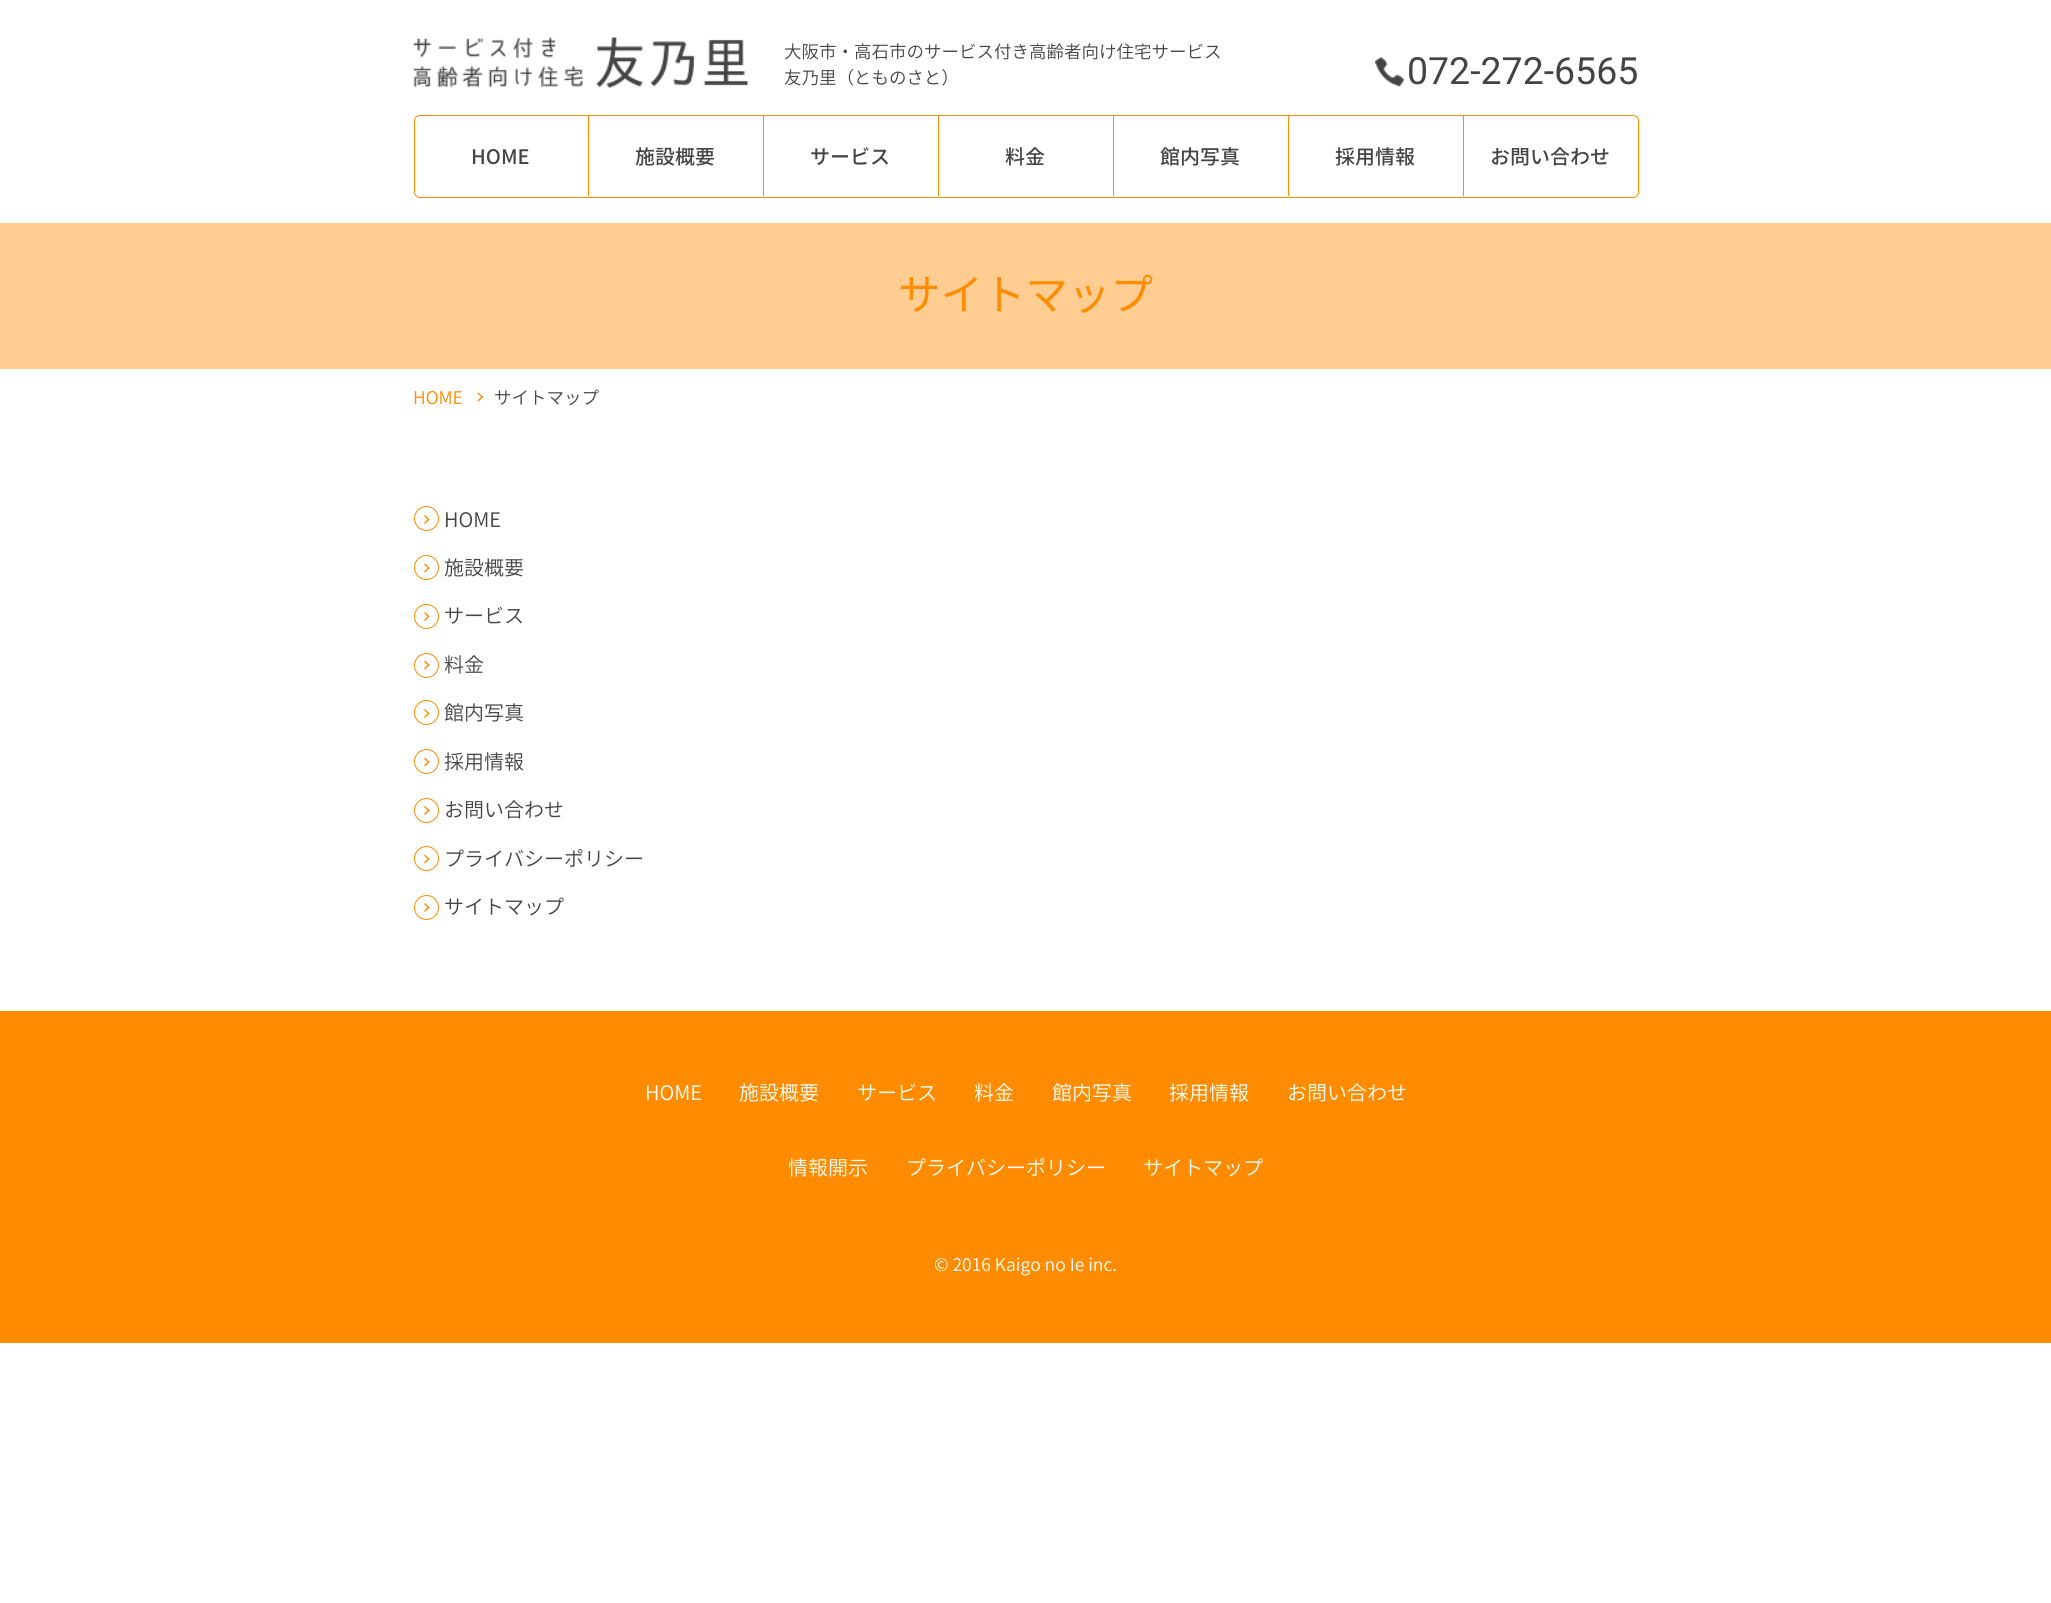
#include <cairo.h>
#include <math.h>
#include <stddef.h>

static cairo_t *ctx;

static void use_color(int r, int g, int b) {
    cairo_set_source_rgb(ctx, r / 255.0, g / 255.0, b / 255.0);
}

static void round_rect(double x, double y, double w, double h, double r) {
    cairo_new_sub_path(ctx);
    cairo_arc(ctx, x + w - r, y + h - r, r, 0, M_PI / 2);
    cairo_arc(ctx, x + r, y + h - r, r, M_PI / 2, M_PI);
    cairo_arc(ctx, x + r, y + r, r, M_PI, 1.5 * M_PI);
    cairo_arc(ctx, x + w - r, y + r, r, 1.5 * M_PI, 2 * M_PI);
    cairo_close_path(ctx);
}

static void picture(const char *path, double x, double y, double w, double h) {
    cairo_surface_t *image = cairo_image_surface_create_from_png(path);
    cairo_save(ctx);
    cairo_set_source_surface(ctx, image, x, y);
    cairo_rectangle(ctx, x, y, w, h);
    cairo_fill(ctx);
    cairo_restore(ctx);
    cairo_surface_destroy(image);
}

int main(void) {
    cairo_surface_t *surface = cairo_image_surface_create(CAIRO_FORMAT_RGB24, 2051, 1603);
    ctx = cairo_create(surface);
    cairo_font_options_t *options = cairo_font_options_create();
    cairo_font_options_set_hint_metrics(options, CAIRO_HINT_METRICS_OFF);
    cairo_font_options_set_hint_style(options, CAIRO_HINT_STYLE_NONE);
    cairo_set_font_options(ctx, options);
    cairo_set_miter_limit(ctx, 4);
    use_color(255, 255, 255);
    cairo_paint(ctx);
    picture("img1.png", 413, 37, 335, 51);
    cairo_select_font_face(ctx, "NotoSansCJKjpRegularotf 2", CAIRO_FONT_SLANT_NORMAL, CAIRO_FONT_WEIGHT_NORMAL);
    cairo_set_font_size(ctx, 17.5);
    use_color(68, 68, 68);
    cairo_move_to(ctx, 784, 58);
    cairo_show_text(ctx, "大阪市・高石市のサービス付き高齢者向け住宅サービス");
    cairo_move_to(ctx, 784, 84);
    cairo_show_text(ctx, "友乃里（とものさと）");
    picture("img2.png", 1375, 57, 29, 30);
    cairo_select_font_face(ctx, "Roboto", CAIRO_FONT_SLANT_NORMAL, CAIRO_FONT_WEIGHT_NORMAL);
    cairo_set_font_size(ctx, 37.5);
    cairo_move_to(ctx, 1407, 84);
    cairo_show_text(ctx, "072-272-6565");
    round_rect(414.5, 115.5, 1224, 82, 5.5);
    use_color(255, 140, 0);
    cairo_set_line_width(ctx, 1);
    cairo_stroke(ctx);
    cairo_select_font_face(ctx, "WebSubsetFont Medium", CAIRO_FONT_SLANT_NORMAL, CAIRO_FONT_WEIGHT_NORMAL);
    cairo_set_font_size(ctx, 20);
    use_color(68, 68, 68);
    cairo_move_to(ctx, 471, 164);
    cairo_show_text(ctx, "HOME");
    use_color(255, 140, 0);
    cairo_rectangle(ctx, 588, 116, 1, 80);
    cairo_fill(ctx);
    use_color(68, 68, 68);
    cairo_move_to(ctx, 635, 164);
    cairo_show_text(ctx, "施設概要");
    use_color(255, 140, 0);
    cairo_rectangle(ctx, 763, 116, 1, 80);
    cairo_fill(ctx);
    use_color(68, 68, 68);
    cairo_move_to(ctx, 810, 164);
    cairo_show_text(ctx, "サービス");
    use_color(255, 140, 0);
    cairo_rectangle(ctx, 938, 116, 1, 80);
    cairo_fill(ctx);
    use_color(68, 68, 68);
    cairo_move_to(ctx, 1005, 164);
    cairo_show_text(ctx, "料金");
    use_color(255, 140, 0);
    cairo_rectangle(ctx, 1113, 116, 1, 80);
    cairo_fill(ctx);
    use_color(68, 68, 68);
    cairo_move_to(ctx, 1160, 164);
    cairo_show_text(ctx, "館内写真");
    use_color(255, 140, 0);
    cairo_rectangle(ctx, 1288, 116, 1, 80);
    cairo_fill(ctx);
    use_color(68, 68, 68);
    cairo_move_to(ctx, 1335, 164);
    cairo_show_text(ctx, "採用情報");
    use_color(255, 140, 0);
    cairo_rectangle(ctx, 1463, 116, 1, 80);
    cairo_fill(ctx);
    use_color(68, 68, 68);
    cairo_move_to(ctx, 1490, 164);
    cairo_show_text(ctx, "お問い合わせ");
    use_color(255, 205, 145);
    cairo_rectangle(ctx, 0, 223, 2051, 146);
    cairo_fill(ctx);
    cairo_select_font_face(ctx, "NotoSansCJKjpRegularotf", CAIRO_FONT_SLANT_NORMAL, CAIRO_FONT_WEIGHT_NORMAL);
    cairo_set_font_size(ctx, 42.5);
    use_color(255, 140, 0);
    cairo_move_to(ctx, 898, 310);
    cairo_show_text(ctx, "サイトマップ");
    cairo_select_font_face(ctx, "NotoSansCJKjpRegularotf 2", CAIRO_FONT_SLANT_NORMAL, CAIRO_FONT_WEIGHT_NORMAL);
    cairo_set_font_size(ctx, 17.5);
    cairo_move_to(ctx, 413, 404);
    cairo_show_text(ctx, "HOME");
    cairo_new_path(ctx);
    cairo_move_to(ctx, 478.5, 392.5);
    cairo_line_to(ctx, 483, 397);
    cairo_line_to(ctx, 482, 398);
    cairo_line_to(ctx, 477.5, 393.5);
    cairo_close_path(ctx);
    cairo_fill(ctx);
    cairo_new_path(ctx);
    cairo_move_to(ctx, 482, 396);
    cairo_line_to(ctx, 483, 397);
    cairo_line_to(ctx, 478.5, 401.5);
    cairo_line_to(ctx, 477.5, 400.5);
    cairo_close_path(ctx);
    cairo_fill(ctx);
    use_color(68, 68, 68);
    cairo_move_to(ctx, 494, 404);
    cairo_show_text(ctx, "サイトマップ");
    cairo_new_path(ctx);
    cairo_arc(ctx, 426.5, 518.5, 12, 0, 2 * M_PI);
    use_color(255, 140, 0);
    cairo_stroke(ctx);
    cairo_set_font_size(ctx, 20);
    use_color(68, 68, 68);
    cairo_move_to(ctx, 444, 527);
    cairo_show_text(ctx, "HOME");
    use_color(255, 140, 0);
    cairo_new_path(ctx);
    cairo_move_to(ctx, 425, 515);
    cairo_line_to(ctx, 429.5, 519.5);
    cairo_line_to(ctx, 428.5, 520.5);
    cairo_line_to(ctx, 424, 516);
    cairo_close_path(ctx);
    cairo_fill(ctx);
    cairo_new_path(ctx);
    cairo_move_to(ctx, 428.5, 518.5);
    cairo_line_to(ctx, 429.5, 519.5);
    cairo_line_to(ctx, 425, 524);
    cairo_line_to(ctx, 424, 523);
    cairo_close_path(ctx);
    cairo_fill(ctx);
    cairo_arc(ctx, 426.5, 567.5, 12, 0, 2 * M_PI);
    cairo_stroke(ctx);
    use_color(68, 68, 68);
    cairo_move_to(ctx, 444, 575);
    cairo_show_text(ctx, "施設概要");
    use_color(255, 140, 0);
    cairo_new_path(ctx);
    cairo_move_to(ctx, 425, 563.5);
    cairo_line_to(ctx, 429.5, 568);
    cairo_line_to(ctx, 428.5, 569);
    cairo_line_to(ctx, 424, 564.5);
    cairo_close_path(ctx);
    cairo_fill(ctx);
    cairo_new_path(ctx);
    cairo_move_to(ctx, 428.5, 567);
    cairo_line_to(ctx, 429.5, 568);
    cairo_line_to(ctx, 425, 572.5);
    cairo_line_to(ctx, 424, 571.5);
    cairo_close_path(ctx);
    cairo_fill(ctx);
    cairo_arc(ctx, 426.5, 616.5, 12, 0, 2 * M_PI);
    cairo_stroke(ctx);
    use_color(68, 68, 68);
    cairo_move_to(ctx, 444, 623);
    cairo_show_text(ctx, "サービス");
    use_color(255, 140, 0);
    cairo_new_path(ctx);
    cairo_move_to(ctx, 425, 612);
    cairo_line_to(ctx, 429.5, 616.5);
    cairo_line_to(ctx, 428.5, 617.5);
    cairo_line_to(ctx, 424, 613);
    cairo_close_path(ctx);
    cairo_fill(ctx);
    cairo_new_path(ctx);
    cairo_move_to(ctx, 428.5, 615.5);
    cairo_line_to(ctx, 429.5, 616.5);
    cairo_line_to(ctx, 425, 621);
    cairo_line_to(ctx, 424, 620);
    cairo_close_path(ctx);
    cairo_fill(ctx);
    cairo_arc(ctx, 426.5, 665.5, 12, 0, 2 * M_PI);
    cairo_stroke(ctx);
    use_color(68, 68, 68);
    cairo_move_to(ctx, 444, 672);
    cairo_show_text(ctx, "料金");
    use_color(255, 140, 0);
    cairo_new_path(ctx);
    cairo_move_to(ctx, 425, 660.5);
    cairo_line_to(ctx, 429.5, 665);
    cairo_line_to(ctx, 428.5, 666);
    cairo_line_to(ctx, 424, 661.5);
    cairo_close_path(ctx);
    cairo_fill(ctx);
    cairo_new_path(ctx);
    cairo_move_to(ctx, 428.5, 664);
    cairo_line_to(ctx, 429.5, 665);
    cairo_line_to(ctx, 425, 669.5);
    cairo_line_to(ctx, 424, 668.5);
    cairo_close_path(ctx);
    cairo_fill(ctx);
    cairo_arc(ctx, 426.5, 712.5, 12, 0, 2 * M_PI);
    cairo_stroke(ctx);
    use_color(68, 68, 68);
    cairo_move_to(ctx, 444, 720);
    cairo_show_text(ctx, "館内写真");
    use_color(255, 140, 0);
    cairo_new_path(ctx);
    cairo_move_to(ctx, 425, 709);
    cairo_line_to(ctx, 429.5, 713.5);
    cairo_line_to(ctx, 428.5, 714.5);
    cairo_line_to(ctx, 424, 710);
    cairo_close_path(ctx);
    cairo_fill(ctx);
    cairo_new_path(ctx);
    cairo_move_to(ctx, 428.5, 712.5);
    cairo_line_to(ctx, 429.5, 713.5);
    cairo_line_to(ctx, 425, 718);
    cairo_line_to(ctx, 424, 717);
    cairo_close_path(ctx);
    cairo_fill(ctx);
    cairo_arc(ctx, 426.5, 761.5, 12, 0, 2 * M_PI);
    cairo_stroke(ctx);
    use_color(68, 68, 68);
    cairo_move_to(ctx, 444, 769);
    cairo_show_text(ctx, "採用情報");
    use_color(255, 140, 0);
    cairo_new_path(ctx);
    cairo_move_to(ctx, 425, 757.5);
    cairo_line_to(ctx, 429.5, 762);
    cairo_line_to(ctx, 428.5, 763);
    cairo_line_to(ctx, 424, 758.5);
    cairo_close_path(ctx);
    cairo_fill(ctx);
    cairo_new_path(ctx);
    cairo_move_to(ctx, 428.5, 761);
    cairo_line_to(ctx, 429.5, 762);
    cairo_line_to(ctx, 425, 766.5);
    cairo_line_to(ctx, 424, 765.5);
    cairo_close_path(ctx);
    cairo_fill(ctx);
    cairo_arc(ctx, 426.5, 810.5, 12, 0, 2 * M_PI);
    cairo_stroke(ctx);
    use_color(68, 68, 68);
    cairo_move_to(ctx, 444, 817);
    cairo_show_text(ctx, "お問い合わせ");
    use_color(255, 140, 0);
    cairo_new_path(ctx);
    cairo_move_to(ctx, 425, 806);
    cairo_line_to(ctx, 429.5, 810.5);
    cairo_line_to(ctx, 428.5, 811.5);
    cairo_line_to(ctx, 424, 807);
    cairo_close_path(ctx);
    cairo_fill(ctx);
    cairo_new_path(ctx);
    cairo_move_to(ctx, 428.5, 809.5);
    cairo_line_to(ctx, 429.5, 810.5);
    cairo_line_to(ctx, 425, 815);
    cairo_line_to(ctx, 424, 814);
    cairo_close_path(ctx);
    cairo_fill(ctx);
    cairo_arc(ctx, 426.5, 858.5, 12, 0, 2 * M_PI);
    cairo_stroke(ctx);
    use_color(68, 68, 68);
    cairo_move_to(ctx, 444, 866);
    cairo_show_text(ctx, "プライバシーポリシー");
    use_color(255, 140, 0);
    cairo_new_path(ctx);
    cairo_move_to(ctx, 425, 854.5);
    cairo_line_to(ctx, 429.5, 859);
    cairo_line_to(ctx, 428.5, 860);
    cairo_line_to(ctx, 424, 855.5);
    cairo_close_path(ctx);
    cairo_fill(ctx);
    cairo_new_path(ctx);
    cairo_move_to(ctx, 428.5, 858);
    cairo_line_to(ctx, 429.5, 859);
    cairo_line_to(ctx, 425, 863.5);
    cairo_line_to(ctx, 424, 862.5);
    cairo_close_path(ctx);
    cairo_fill(ctx);
    cairo_arc(ctx, 426.5, 907.5, 12, 0, 2 * M_PI);
    cairo_stroke(ctx);
    use_color(68, 68, 68);
    cairo_move_to(ctx, 444, 914);
    cairo_show_text(ctx, "サイトマップ");
    use_color(255, 140, 0);
    cairo_new_path(ctx);
    cairo_move_to(ctx, 425, 903);
    cairo_line_to(ctx, 429.5, 907.5);
    cairo_line_to(ctx, 428.5, 908.5);
    cairo_line_to(ctx, 424, 904);
    cairo_close_path(ctx);
    cairo_fill(ctx);
    cairo_new_path(ctx);
    cairo_move_to(ctx, 428.5, 906.5);
    cairo_line_to(ctx, 429.5, 907.5);
    cairo_line_to(ctx, 425, 912);
    cairo_line_to(ctx, 424, 911);
    cairo_close_path(ctx);
    cairo_fill(ctx);
    cairo_rectangle(ctx, 0, 1011, 2051, 332);
    cairo_fill(ctx);
    use_color(255, 255, 255);
    cairo_move_to(ctx, 645, 1100);
    cairo_show_text(ctx, "HOME");
    cairo_move_to(ctx, 739, 1100);
    cairo_show_text(ctx, "施設概要");
    cairo_move_to(ctx, 857, 1100);
    cairo_show_text(ctx, "サービス");
    cairo_move_to(ctx, 974, 1100);
    cairo_show_text(ctx, "料金");
    cairo_move_to(ctx, 1052, 1100);
    cairo_show_text(ctx, "館内写真");
    cairo_move_to(ctx, 1169, 1100);
    cairo_show_text(ctx, "採用情報");
    cairo_move_to(ctx, 1287, 1100);
    cairo_show_text(ctx, "お問い合わせ");
    cairo_move_to(ctx, 788, 1175);
    cairo_show_text(ctx, "情報開示");
    cairo_move_to(ctx, 906, 1175);
    cairo_show_text(ctx, "プライバシーポリシー");
    cairo_move_to(ctx, 1143, 1175);
    cairo_show_text(ctx, "サイトマップ");
    cairo_set_font_size(ctx, 17.5);
    cairo_move_to(ctx, 934, 1271);
    cairo_show_text(ctx, "© 2016 Kaigo no Ie inc.");
    cairo_surface_write_to_png(surface, "result.png");
    cairo_font_options_destroy(options);
    cairo_destroy(ctx);
    cairo_surface_destroy(surface);
    return 0;
}
